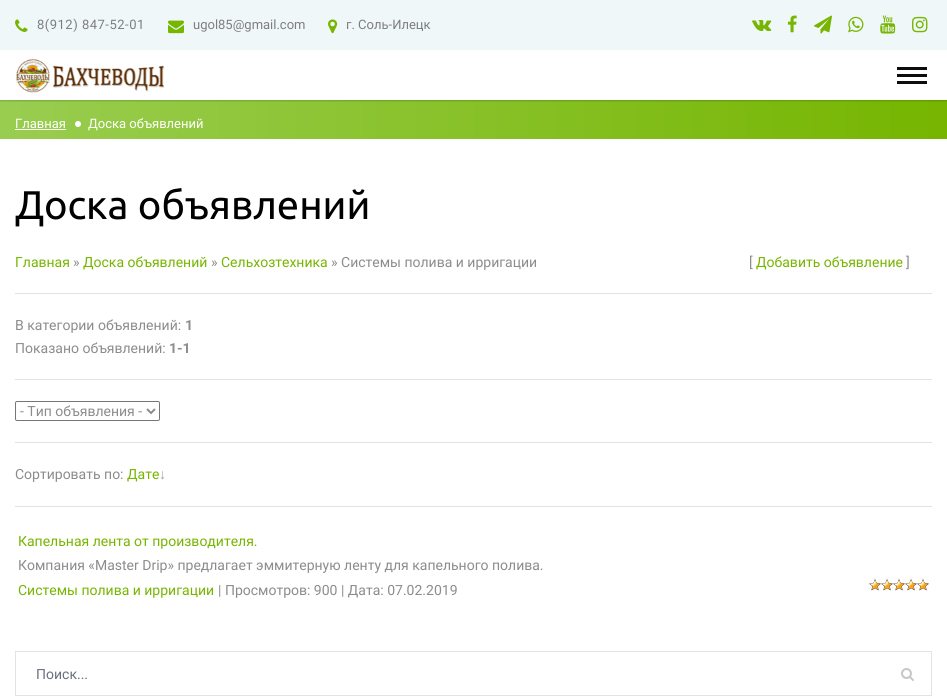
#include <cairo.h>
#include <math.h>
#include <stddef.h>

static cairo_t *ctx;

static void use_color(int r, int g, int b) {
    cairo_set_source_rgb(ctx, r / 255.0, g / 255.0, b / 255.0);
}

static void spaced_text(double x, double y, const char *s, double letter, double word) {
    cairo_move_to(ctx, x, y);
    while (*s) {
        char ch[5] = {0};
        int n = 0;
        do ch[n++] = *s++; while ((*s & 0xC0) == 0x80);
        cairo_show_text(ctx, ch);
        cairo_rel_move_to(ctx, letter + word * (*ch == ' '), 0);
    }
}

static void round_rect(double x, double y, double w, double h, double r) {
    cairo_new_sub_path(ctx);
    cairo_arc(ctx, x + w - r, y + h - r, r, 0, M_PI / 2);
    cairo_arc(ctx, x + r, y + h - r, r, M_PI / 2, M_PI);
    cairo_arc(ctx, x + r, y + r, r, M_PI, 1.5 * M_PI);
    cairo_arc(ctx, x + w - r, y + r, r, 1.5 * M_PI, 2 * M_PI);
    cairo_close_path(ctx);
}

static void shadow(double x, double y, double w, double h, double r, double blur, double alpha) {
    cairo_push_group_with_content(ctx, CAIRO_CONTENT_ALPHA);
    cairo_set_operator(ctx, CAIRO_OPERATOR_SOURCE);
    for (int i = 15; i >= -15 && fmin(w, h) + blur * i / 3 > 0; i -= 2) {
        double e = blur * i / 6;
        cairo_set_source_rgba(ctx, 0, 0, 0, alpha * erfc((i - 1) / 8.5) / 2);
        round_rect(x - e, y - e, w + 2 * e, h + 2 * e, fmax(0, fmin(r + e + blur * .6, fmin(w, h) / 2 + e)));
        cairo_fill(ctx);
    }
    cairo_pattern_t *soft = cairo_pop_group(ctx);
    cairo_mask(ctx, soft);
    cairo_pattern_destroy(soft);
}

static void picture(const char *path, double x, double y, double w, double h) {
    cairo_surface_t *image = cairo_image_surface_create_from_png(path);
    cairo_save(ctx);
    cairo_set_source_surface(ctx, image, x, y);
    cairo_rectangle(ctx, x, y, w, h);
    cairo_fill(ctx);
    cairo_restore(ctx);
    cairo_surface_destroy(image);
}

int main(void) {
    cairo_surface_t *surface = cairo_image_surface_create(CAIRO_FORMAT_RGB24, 947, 699);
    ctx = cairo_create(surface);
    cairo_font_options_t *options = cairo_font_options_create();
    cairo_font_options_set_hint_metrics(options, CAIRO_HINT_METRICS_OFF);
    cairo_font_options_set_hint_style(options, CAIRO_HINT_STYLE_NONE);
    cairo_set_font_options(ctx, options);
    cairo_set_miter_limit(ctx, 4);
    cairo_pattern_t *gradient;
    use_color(255, 255, 255);
    cairo_paint(ctx);
    gradient = cairo_pattern_create_linear(0, 120, 947, 119);
    cairo_pattern_add_color_stop_rgba(gradient, 0, 0.6, 0.804, 0.314, 1);
    cairo_pattern_add_color_stop_rgba(gradient, 1, 0.463, 0.71, 0, 1);
    cairo_set_source(ctx, gradient);
    cairo_pattern_destroy(gradient);
    cairo_rectangle(ctx, 0, 100, 947, 39);
    cairo_fill(ctx);
    cairo_save(ctx);
    cairo_rectangle(ctx, 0, 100, 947, 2);
    cairo_clip(ctx);
    use_color(0, 0, 0);
    shadow(0, 1, 947, 100, 0, 1, 0.2);
    cairo_restore(ctx);
    use_color(240, 247, 249);
    cairo_rectangle(ctx, 0, 0, 947, 50);
    cairo_fill(ctx);
    picture("img1.png", 15, 19, 13, 13);
    cairo_select_font_face(ctx, "Roboto", CAIRO_FONT_SLANT_NORMAL, CAIRO_FONT_WEIGHT_NORMAL);
    cairo_set_font_size(ctx, 13);
    use_color(126, 126, 126);
    spaced_text(37, 29, "8(912) 847-52-01", 0.5, 0);
    picture("img2.png", 168, 20, 16, 14);
    cairo_move_to(ctx, 193, 29);
    cairo_show_text(ctx, "ugol85@gmail.com");
    picture("img3.png", 328, 19, 10, 15);
    cairo_move_to(ctx, 346, 29);
    cairo_show_text(ctx, "г. Соль-Илецк");
    picture("img4.png", 752, 20, 20, 11);
    picture("img5.png", 787, 15, 10, 18);
    picture("img6.png", 814, 15, 18, 19);
    picture("img7.png", 848, 16, 16, 17);
    picture("img8.png", 880, 15, 16, 19);
    picture("img9.png", 912, 16, 16, 17);
    picture("img10.png", 16, 59, 149, 34);
    use_color(13, 13, 13);
    cairo_rectangle(ctx, 897, 67, 30, 3);
    cairo_fill(ctx);
    cairo_rectangle(ctx, 897, 74, 30, 3);
    cairo_fill(ctx);
    cairo_rectangle(ctx, 897, 81, 30, 3);
    cairo_fill(ctx);
    use_color(255, 255, 255);
    cairo_move_to(ctx, 15, 128);
    cairo_show_text(ctx, "Главная");
    cairo_rectangle(ctx, 15, 129, 51, 1);
    cairo_fill(ctx);
    cairo_arc(ctx, 78, 124, 3, 0, 2 * M_PI);
    cairo_fill(ctx);
    cairo_move_to(ctx, 88, 128);
    cairo_show_text(ctx, "Доска объявлений");
    cairo_select_font_face(ctx, "Ubuntu", CAIRO_FONT_SLANT_NORMAL, CAIRO_FONT_WEIGHT_NORMAL);
    cairo_set_font_size(ctx, 40);
    use_color(0, 0, 0);
    cairo_move_to(ctx, 15, 219);
    cairo_show_text(ctx, "Доска объявлений");
    cairo_select_font_face(ctx, "Roboto", CAIRO_FONT_SLANT_NORMAL, CAIRO_FONT_WEIGHT_NORMAL);
    cairo_set_font_size(ctx, 14);
    use_color(118, 181, 0);
    cairo_move_to(ctx, 15, 267);
    cairo_show_text(ctx, "Главная");
    use_color(140, 140, 140);
    cairo_move_to(ctx, 73, 267);
    cairo_show_text(ctx, "»");
    use_color(118, 181, 0);
    cairo_move_to(ctx, 83, 267);
    cairo_show_text(ctx, "Доска объявлений");
    use_color(140, 140, 140);
    cairo_move_to(ctx, 211, 267);
    cairo_show_text(ctx, "»");
    use_color(118, 181, 0);
    cairo_move_to(ctx, 221, 267);
    cairo_show_text(ctx, "Сельхозтехника");
    use_color(140, 140, 140);
    cairo_move_to(ctx, 331, 267);
    cairo_show_text(ctx, "» Системы полива и ирригации");
    cairo_move_to(ctx, 749, 267);
    cairo_show_text(ctx, "[");
    use_color(118, 181, 0);
    cairo_move_to(ctx, 756, 267);
    cairo_show_text(ctx, "Добавить объявление");
    use_color(140, 140, 140);
    cairo_move_to(ctx, 906, 267);
    cairo_show_text(ctx, "]");
    use_color(227, 227, 228);
    cairo_rectangle(ctx, 15, 293, 917, 1);
    cairo_fill(ctx);
    use_color(140, 140, 140);
    cairo_move_to(ctx, 15, 330);
    cairo_show_text(ctx, "В категории объявлений:");
    cairo_select_font_face(ctx, "Roboto", CAIRO_FONT_SLANT_NORMAL, CAIRO_FONT_WEIGHT_BOLD);
    cairo_move_to(ctx, 185, 330);
    cairo_show_text(ctx, "1");
    cairo_select_font_face(ctx, "Roboto", CAIRO_FONT_SLANT_NORMAL, CAIRO_FONT_WEIGHT_NORMAL);
    cairo_move_to(ctx, 15, 353);
    cairo_show_text(ctx, "Показано объявлений:");
    cairo_select_font_face(ctx, "Roboto", CAIRO_FONT_SLANT_NORMAL, CAIRO_FONT_WEIGHT_BOLD);
    cairo_move_to(ctx, 169, 353);
    cairo_show_text(ctx, "1-1");
    use_color(227, 227, 228);
    cairo_rectangle(ctx, 15, 379, 917, 1);
    cairo_fill(ctx);
    round_rect(15.5, 401.5, 144, 19, 1.5);
    use_color(118, 118, 118);
    cairo_set_line_width(ctx, 1);
    cairo_stroke(ctx);
    cairo_new_path(ctx);
    cairo_move_to(ctx, 147, 409);
    cairo_line_to(ctx, 151, 413);
    cairo_line_to(ctx, 155, 409);
    use_color(140, 140, 140);
    cairo_set_line_width(ctx, 2);
    cairo_stroke(ctx);
    cairo_select_font_face(ctx, "Roboto", CAIRO_FONT_SLANT_NORMAL, CAIRO_FONT_WEIGHT_NORMAL);
    cairo_move_to(ctx, 20, 416);
    cairo_show_text(ctx, "- Тип объявления -");
    use_color(227, 227, 228);
    cairo_rectangle(ctx, 15, 442, 917, 1);
    cairo_fill(ctx);
    use_color(140, 140, 140);
    cairo_move_to(ctx, 15, 479);
    cairo_show_text(ctx, "Сортировать по:");
    use_color(118, 181, 0);
    cairo_move_to(ctx, 127, 479);
    cairo_show_text(ctx, "Дате");
    cairo_select_font_face(ctx, "Liberation Sans", CAIRO_FONT_SLANT_NORMAL, CAIRO_FONT_WEIGHT_NORMAL);
    use_color(160, 160, 160);
    cairo_move_to(ctx, 159, 479);
    cairo_show_text(ctx, "↓");
    use_color(227, 227, 228);
    cairo_rectangle(ctx, 15, 506, 917, 1);
    cairo_fill(ctx);
    cairo_select_font_face(ctx, "Roboto", CAIRO_FONT_SLANT_NORMAL, CAIRO_FONT_WEIGHT_NORMAL);
    use_color(118, 181, 0);
    cairo_move_to(ctx, 18, 546);
    cairo_show_text(ctx, "Капельная лента от производителя.");
    use_color(140, 140, 140);
    cairo_move_to(ctx, 18, 570);
    cairo_show_text(ctx, "Компания «Master Drip» предлагает эммитерную ленту для капельного полива.");
    use_color(118, 181, 0);
    cairo_move_to(ctx, 18, 595);
    cairo_show_text(ctx, "Системы полива и ирригации");
    use_color(140, 140, 140);
    cairo_move_to(ctx, 218, 595);
    cairo_show_text(ctx, "| Просмотров: 900 | Дата: 07.02.2019");
    picture("img11.png", 869, 579, 60, 12);
    picture("img12.png", 869, 579, 60, 12);
    cairo_rectangle(ctx, 15.5, 651.5, 916, 44);
    use_color(227, 227, 228);
    cairo_set_line_width(ctx, 1);
    cairo_stroke(ctx);
    use_color(107, 111, 125);
    cairo_move_to(ctx, 36, 679);
    cairo_show_text(ctx, "Поиск...");
    picture("img13.png", 901, 668, 13, 13);
    cairo_surface_write_to_png(surface, "result.png");
    cairo_font_options_destroy(options);
    cairo_destroy(ctx);
    cairo_surface_destroy(surface);
    return 0;
}
